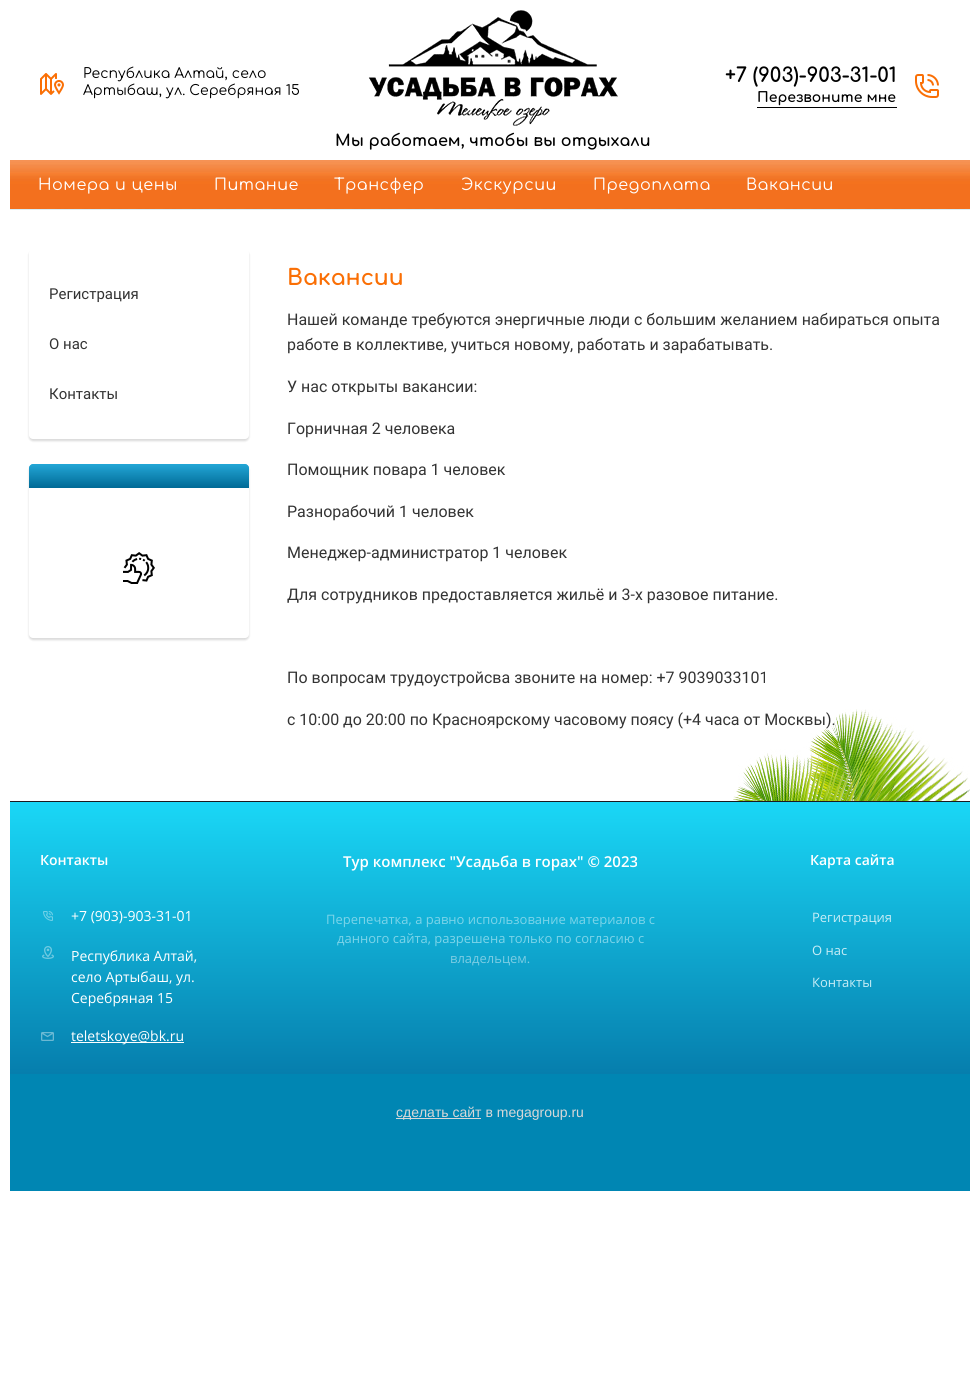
#include <cairo.h>
#include <math.h>
#include <stddef.h>

static cairo_t *ctx;

static void use_color(int r, int g, int b) {
    cairo_set_source_rgb(ctx, r / 255.0, g / 255.0, b / 255.0);
}

static void spaced_text(double x, double y, const char *s, double letter, double word) {
    cairo_move_to(ctx, x, y);
    while (*s) {
        char ch[5] = {0};
        int n = 0;
        do ch[n++] = *s++; while ((*s & 0xC0) == 0x80);
        cairo_show_text(ctx, ch);
        cairo_rel_move_to(ctx, letter + word * (*ch == ' '), 0);
    }
}

static void round_rect(double x, double y, double w, double h, double r) {
    cairo_new_sub_path(ctx);
    cairo_arc(ctx, x + w - r, y + h - r, r, 0, M_PI / 2);
    cairo_arc(ctx, x + r, y + h - r, r, M_PI / 2, M_PI);
    cairo_arc(ctx, x + r, y + r, r, M_PI, 1.5 * M_PI);
    cairo_arc(ctx, x + w - r, y + r, r, 1.5 * M_PI, 2 * M_PI);
    cairo_close_path(ctx);
}

static void shadow(double x, double y, double w, double h, double r, double blur, double alpha) {
    cairo_push_group_with_content(ctx, CAIRO_CONTENT_ALPHA);
    cairo_set_operator(ctx, CAIRO_OPERATOR_SOURCE);
    for (int i = 15; i >= -15 && fmin(w, h) + blur * i / 3 > 0; i -= 2) {
        double e = blur * i / 6;
        cairo_set_source_rgba(ctx, 0, 0, 0, alpha * erfc((i - 1) / 8.5) / 2);
        round_rect(x - e, y - e, w + 2 * e, h + 2 * e, fmax(0, fmin(r + e + blur * .6, fmin(w, h) / 2 + e)));
        cairo_fill(ctx);
    }
    cairo_pattern_t *soft = cairo_pop_group(ctx);
    cairo_mask(ctx, soft);
    cairo_pattern_destroy(soft);
}

static void picture(const char *path, double x, double y, double w, double h) {
    cairo_surface_t *image = cairo_image_surface_create_from_png(path);
    cairo_save(ctx);
    cairo_set_source_surface(ctx, image, x, y);
    cairo_rectangle(ctx, x, y, w, h);
    cairo_fill(ctx);
    cairo_restore(ctx);
    cairo_surface_destroy(image);
}

int main(void) {
    cairo_surface_t *surface = cairo_image_surface_create(CAIRO_FORMAT_RGB24, 979, 1379);
    ctx = cairo_create(surface);
    cairo_font_options_t *options = cairo_font_options_create();
    cairo_font_options_set_hint_metrics(options, CAIRO_HINT_METRICS_OFF);
    cairo_font_options_set_hint_style(options, CAIRO_HINT_STYLE_NONE);
    cairo_set_font_options(ctx, options);
    cairo_set_miter_limit(ctx, 4);
    cairo_pattern_t *gradient;
    use_color(255, 255, 255);
    cairo_paint(ctx);
    picture("img1.png", 40, 73, 24, 22);
    cairo_select_font_face(ctx, "Comfortaa", CAIRO_FONT_SLANT_NORMAL, CAIRO_FONT_WEIGHT_NORMAL);
    cairo_set_font_size(ctx, 14);
    use_color(0, 0, 0);
    cairo_move_to(ctx, 83, 78);
    cairo_show_text(ctx, "Республика Алтай, село");
    cairo_move_to(ctx, 83, 95);
    cairo_show_text(ctx, "Артыбаш, ул. Серебряная 15");
    picture("img2.png", 915, 74, 24, 24);
    cairo_select_font_face(ctx, "Comfortaa", CAIRO_FONT_SLANT_NORMAL, CAIRO_FONT_WEIGHT_BOLD);
    cairo_set_font_size(ctx, 20);
    cairo_move_to(ctx, 725, 82);
    cairo_show_text(ctx, "+7 (903)-903-31-01");
    cairo_rectangle(ctx, 757, 107, 140, 1);
    cairo_fill(ctx);
    cairo_set_font_size(ctx, 14);
    cairo_move_to(ctx, 757, 102);
    cairo_show_text(ctx, "Перезвоните мне");
    picture("img3.png", 368, 10, 250, 116);
    cairo_set_font_size(ctx, 16);
    cairo_move_to(ctx, 335, 146);
    cairo_show_text(ctx, "Мы работаем, чтобы вы отдыхали");
    picture("img4.png", 10, 160, 960, 49);
    cairo_select_font_face(ctx, "Comfortaa", CAIRO_FONT_SLANT_NORMAL, CAIRO_FONT_WEIGHT_NORMAL);
    use_color(255, 255, 255);
    spaced_text(38, 190, "Номера и цены", 0.5, 0);
    spaced_text(214, 190, "Питание", 0.5, 0);
    spaced_text(334, 190, "Трансфер", 0.5, 0);
    spaced_text(461, 190, "Экскурсии", 0.5, 0);
    spaced_text(593, 190, "Предоплата", 0.5, 0);
    spaced_text(746, 190, "Вакансии", 0.5, 0);
    picture("img5.png", 733, 709, 237, 92);
    use_color(217, 237, 244);
    cairo_rectangle(ctx, 10, 209, 960, 1);
    cairo_fill(ctx);
    use_color(0, 0, 0);
    shadow(29, 251, 220, 190, 4, 1, 0.15);
    use_color(255, 255, 255);
    round_rect(29, 249, 220, 190, 4);
    cairo_fill(ctx);
    cairo_select_font_face(ctx, "Roboto", CAIRO_FONT_SLANT_NORMAL, CAIRO_FONT_WEIGHT_NORMAL);
    cairo_set_font_size(ctx, 15);
    use_color(51, 51, 51);
    cairo_move_to(ctx, 49, 299);
    cairo_show_text(ctx, "Регистрация");
    cairo_move_to(ctx, 49, 349);
    cairo_show_text(ctx, "О нас");
    cairo_move_to(ctx, 49, 399);
    cairo_show_text(ctx, "Контакты");
    use_color(0, 0, 0);
    shadow(29, 466, 220, 174, 4, 1, 0.15);
    use_color(255, 255, 255);
    round_rect(29, 464, 220, 174, 4);
    cairo_fill(ctx);
    use_color(0, 144, 196);
    cairo_new_path(ctx);
    cairo_move_to(ctx, 33, 464);
    cairo_line_to(ctx, 245, 464);
    cairo_curve_to(ctx, 247, 464, 249, 466, 249, 468);
    cairo_line_to(ctx, 249, 488);
    cairo_line_to(ctx, 29, 488);
    cairo_line_to(ctx, 29, 468);
    cairo_curve_to(ctx, 29, 466, 31, 464, 33, 464);
    cairo_close_path(ctx);
    cairo_fill(ctx);
    gradient = cairo_pattern_create_linear(139, 464, 139, 488);
    cairo_pattern_add_color_stop_rgba(gradient, 0, 0.298, 0.753, 0.922, 0.46);
    cairo_pattern_add_color_stop_rgba(gradient, 1, 0, 0.235, 0.369, 0.46);
    cairo_set_source(ctx, gradient);
    cairo_pattern_destroy(gradient);
    cairo_new_path(ctx);
    cairo_move_to(ctx, 33, 464);
    cairo_line_to(ctx, 245, 464);
    cairo_curve_to(ctx, 247, 464, 249, 466, 249, 468);
    cairo_line_to(ctx, 249, 488);
    cairo_line_to(ctx, 29, 488);
    cairo_line_to(ctx, 29, 468);
    cairo_curve_to(ctx, 29, 466, 31, 464, 33, 464);
    cairo_close_path(ctx);
    cairo_fill(ctx);
    picture("img6.png", 123, 552, 32, 32);
    cairo_select_font_face(ctx, "Comfortaa", CAIRO_FONT_SLANT_NORMAL, CAIRO_FONT_WEIGHT_BOLD);
    cairo_set_font_size(ctx, 22);
    use_color(250, 111, 5);
    cairo_move_to(ctx, 287, 285);
    cairo_show_text(ctx, "Вакансии");
    cairo_select_font_face(ctx, "Roboto", CAIRO_FONT_SLANT_NORMAL, CAIRO_FONT_WEIGHT_NORMAL);
    cairo_set_font_size(ctx, 16);
    use_color(51, 51, 51);
    cairo_move_to(ctx, 287, 325);
    cairo_show_text(ctx, "Нашей команде требуются энергичные люди с большим желанием набираться опыта");
    cairo_move_to(ctx, 287, 350);
    cairo_show_text(ctx, "работе в коллективе, учиться новому, работать и зарабатывать.");
    cairo_move_to(ctx, 287, 392);
    cairo_show_text(ctx, "У нас открыты вакансии:");
    cairo_move_to(ctx, 287, 434);
    cairo_show_text(ctx, "Горничная 2 человека");
    cairo_move_to(ctx, 287, 475);
    cairo_show_text(ctx, "Помощник повара 1 человек");
    cairo_move_to(ctx, 287, 517);
    cairo_show_text(ctx, "Разнорабочий 1 человек");
    cairo_move_to(ctx, 287, 558);
    cairo_show_text(ctx, "Менеджер-администратор 1 человек");
    cairo_move_to(ctx, 287, 600);
    cairo_show_text(ctx, "Для сотрудников предоставляется жильё и 3-х разовое питание.");
    cairo_move_to(ctx, 287, 683);
    cairo_show_text(ctx, "По вопросам трудоустройсва звоните на номер: +7 9039033101");
    cairo_move_to(ctx, 287, 725);
    cairo_show_text(ctx, "с 10:00 до 20:00 по Красноярскому часовому поясу (+4 часа от Москвы).");
    use_color(27, 26, 31);
    cairo_rectangle(ctx, 10, 801, 960, 1);
    cairo_fill(ctx);
    gradient = cairo_pattern_create_linear(490, 802, 490, 1074);
    cairo_pattern_add_color_stop_rgba(gradient, 0, 0.102, 0.843, 0.965, 1);
    cairo_pattern_add_color_stop_rgba(gradient, 1, 0.024, 0.494, 0.678, 1);
    cairo_set_source(ctx, gradient);
    cairo_pattern_destroy(gradient);
    cairo_rectangle(ctx, 10, 802, 960, 272);
    cairo_fill(ctx);
    cairo_select_font_face(ctx, "Open Sans SemiBold", CAIRO_FONT_SLANT_NORMAL, CAIRO_FONT_WEIGHT_NORMAL);
    cairo_set_font_size(ctx, 14);
    use_color(255, 255, 255);
    cairo_move_to(ctx, 40, 865);
    cairo_show_text(ctx, "Контакты");
    picture("img7.png", 43, 911, 10, 10);
    cairo_select_font_face(ctx, "Open Sans", CAIRO_FONT_SLANT_NORMAL, CAIRO_FONT_WEIGHT_NORMAL);
    cairo_move_to(ctx, 71, 921);
    cairo_show_text(ctx, "+7 (903)-903-31-01");
    picture("img8.png", 42, 946, 12, 13);
    cairo_move_to(ctx, 71, 961);
    cairo_show_text(ctx, "Республика Алтай,");
    cairo_move_to(ctx, 71, 982);
    cairo_show_text(ctx, "село Артыбаш, ул.");
    cairo_move_to(ctx, 71, 1003);
    cairo_show_text(ctx, "Серебряная 15");
    picture("img9.png", 41, 1032, 13, 9);
    cairo_rectangle(ctx, 71, 1042, 113, 1);
    cairo_fill(ctx);
    cairo_move_to(ctx, 71, 1041);
    cairo_show_text(ctx, "teletskoye@bk.ru");
    cairo_select_font_face(ctx, "Open Sans SemiBold", CAIRO_FONT_SLANT_NORMAL, CAIRO_FONT_WEIGHT_NORMAL);
    cairo_set_font_size(ctx, 15);
    cairo_move_to(ctx, 343, 867);
    cairo_show_text(ctx, "Тур комплекс \"Усадьба в горах\" © 2023");
    cairo_select_font_face(ctx, "Open Sans", CAIRO_FONT_SLANT_NORMAL, CAIRO_FONT_WEIGHT_NORMAL);
    cairo_set_font_size(ctx, 13);
    use_color(124, 212, 233);
    cairo_move_to(ctx, 326, 924);
    cairo_show_text(ctx, "Перепечатка, а равно использование материалов с");
    cairo_move_to(ctx, 337, 943);
    cairo_show_text(ctx, "данного сайта, разрешена только по согласию с");
    use_color(123, 204, 227);
    cairo_move_to(ctx, 450, 963);
    cairo_show_text(ctx, "владельцем.");
    cairo_select_font_face(ctx, "Open Sans SemiBold", CAIRO_FONT_SLANT_NORMAL, CAIRO_FONT_WEIGHT_NORMAL);
    cairo_set_font_size(ctx, 14);
    use_color(255, 255, 255);
    cairo_move_to(ctx, 810, 865);
    cairo_show_text(ctx, "Карта сайта");
    cairo_select_font_face(ctx, "Open Sans", CAIRO_FONT_SLANT_NORMAL, CAIRO_FONT_WEIGHT_NORMAL);
    cairo_set_font_size(ctx, 13);
    use_color(200, 237, 246);
    cairo_move_to(ctx, 812, 922);
    cairo_show_text(ctx, "Регистрация");
    cairo_move_to(ctx, 812, 955);
    cairo_show_text(ctx, "О нас");
    cairo_move_to(ctx, 812, 987);
    cairo_show_text(ctx, "Контакты");
    use_color(0, 134, 179);
    cairo_rectangle(ctx, 10, 1074, 960, 117);
    cairo_fill(ctx);
    use_color(216, 216, 216);
    cairo_rectangle(ctx, 396, 1118, 85, 1);
    cairo_fill(ctx);
    cairo_select_font_face(ctx, "Liberation Sans", CAIRO_FONT_SLANT_NORMAL, CAIRO_FONT_WEIGHT_NORMAL);
    cairo_set_font_size(ctx, 14);
    cairo_move_to(ctx, 396, 1117);
    cairo_show_text(ctx, "сделать сайт в megagroup.ru");
    cairo_surface_write_to_png(surface, "result.png");
    cairo_font_options_destroy(options);
    cairo_destroy(ctx);
    cairo_surface_destroy(surface);
    return 0;
}
